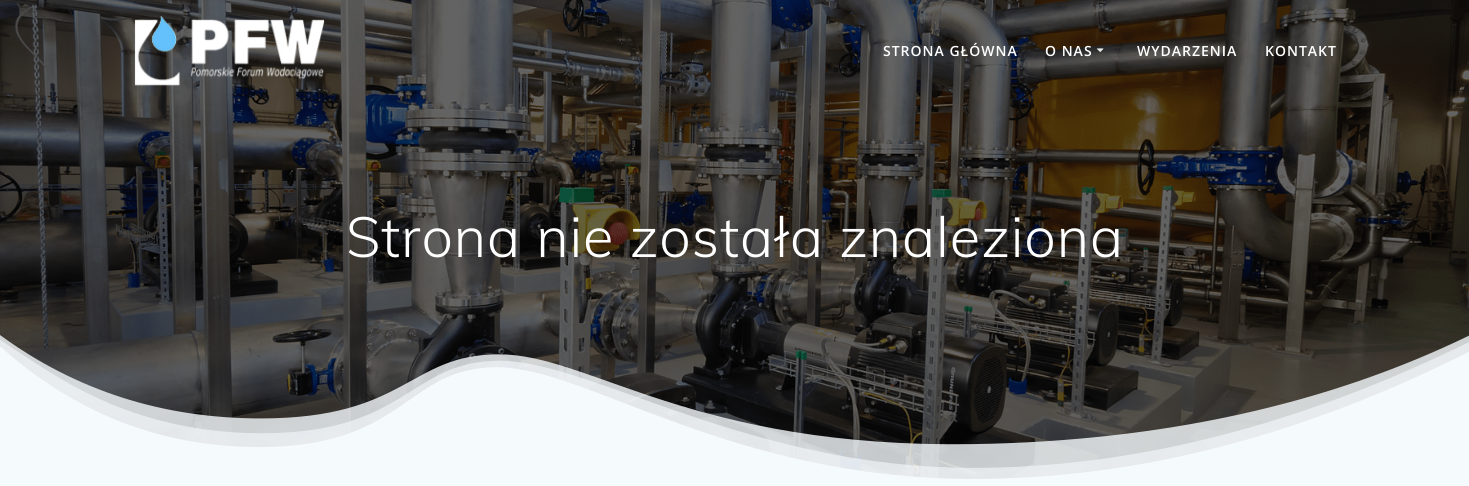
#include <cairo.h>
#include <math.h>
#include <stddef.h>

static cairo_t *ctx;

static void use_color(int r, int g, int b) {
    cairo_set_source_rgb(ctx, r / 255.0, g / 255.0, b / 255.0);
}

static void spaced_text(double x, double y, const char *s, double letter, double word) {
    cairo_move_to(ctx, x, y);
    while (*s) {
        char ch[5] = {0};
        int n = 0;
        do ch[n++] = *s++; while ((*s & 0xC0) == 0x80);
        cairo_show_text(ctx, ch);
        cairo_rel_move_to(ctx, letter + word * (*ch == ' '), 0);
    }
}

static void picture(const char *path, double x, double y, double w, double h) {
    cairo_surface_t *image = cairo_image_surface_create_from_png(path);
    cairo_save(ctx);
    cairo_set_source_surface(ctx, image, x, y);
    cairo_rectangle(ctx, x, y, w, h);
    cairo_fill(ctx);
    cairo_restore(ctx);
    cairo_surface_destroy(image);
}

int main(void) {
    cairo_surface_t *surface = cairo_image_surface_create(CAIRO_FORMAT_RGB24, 1469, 486);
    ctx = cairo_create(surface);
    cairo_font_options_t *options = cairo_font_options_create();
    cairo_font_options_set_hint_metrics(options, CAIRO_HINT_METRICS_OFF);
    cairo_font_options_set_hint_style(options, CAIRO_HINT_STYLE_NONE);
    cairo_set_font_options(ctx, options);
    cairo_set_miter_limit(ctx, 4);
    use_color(255, 255, 255);
    cairo_paint(ctx);
    picture("img3.png", 0, 0, 1469, 479);
    picture("img1.png", 134, 16, 191, 70);
    cairo_select_font_face(ctx, "Open Sans SemiBold", CAIRO_FONT_SLANT_NORMAL, CAIRO_FONT_WEIGHT_NORMAL);
    cairo_set_font_size(ctx, 14);
    use_color(255, 255, 255);
    spaced_text(883, 56, "STRONA GŁÓWNA", 1, 0);
    spaced_text(1045, 56, "O NAS", 1, 0);
    picture("img2.png", 1097, 48, 7, 4);
    spaced_text(1137, 56, "WYDARZENIA", 1, 0);
    spaced_text(1265, 56, "KONTAKT", 1, 0);
    cairo_select_font_face(ctx, "Muli Light", CAIRO_FONT_SLANT_NORMAL, CAIRO_FONT_WEIGHT_NORMAL);
    cairo_set_font_size(ctx, 56);
    spaced_text(346, 257, "Strona nie została znaleziona", 0.9, 0);
    picture("img4.png", 0, 335, 1469, 151);
    cairo_surface_write_to_png(surface, "result.png");
    cairo_font_options_destroy(options);
    cairo_destroy(ctx);
    cairo_surface_destroy(surface);
    return 0;
}
